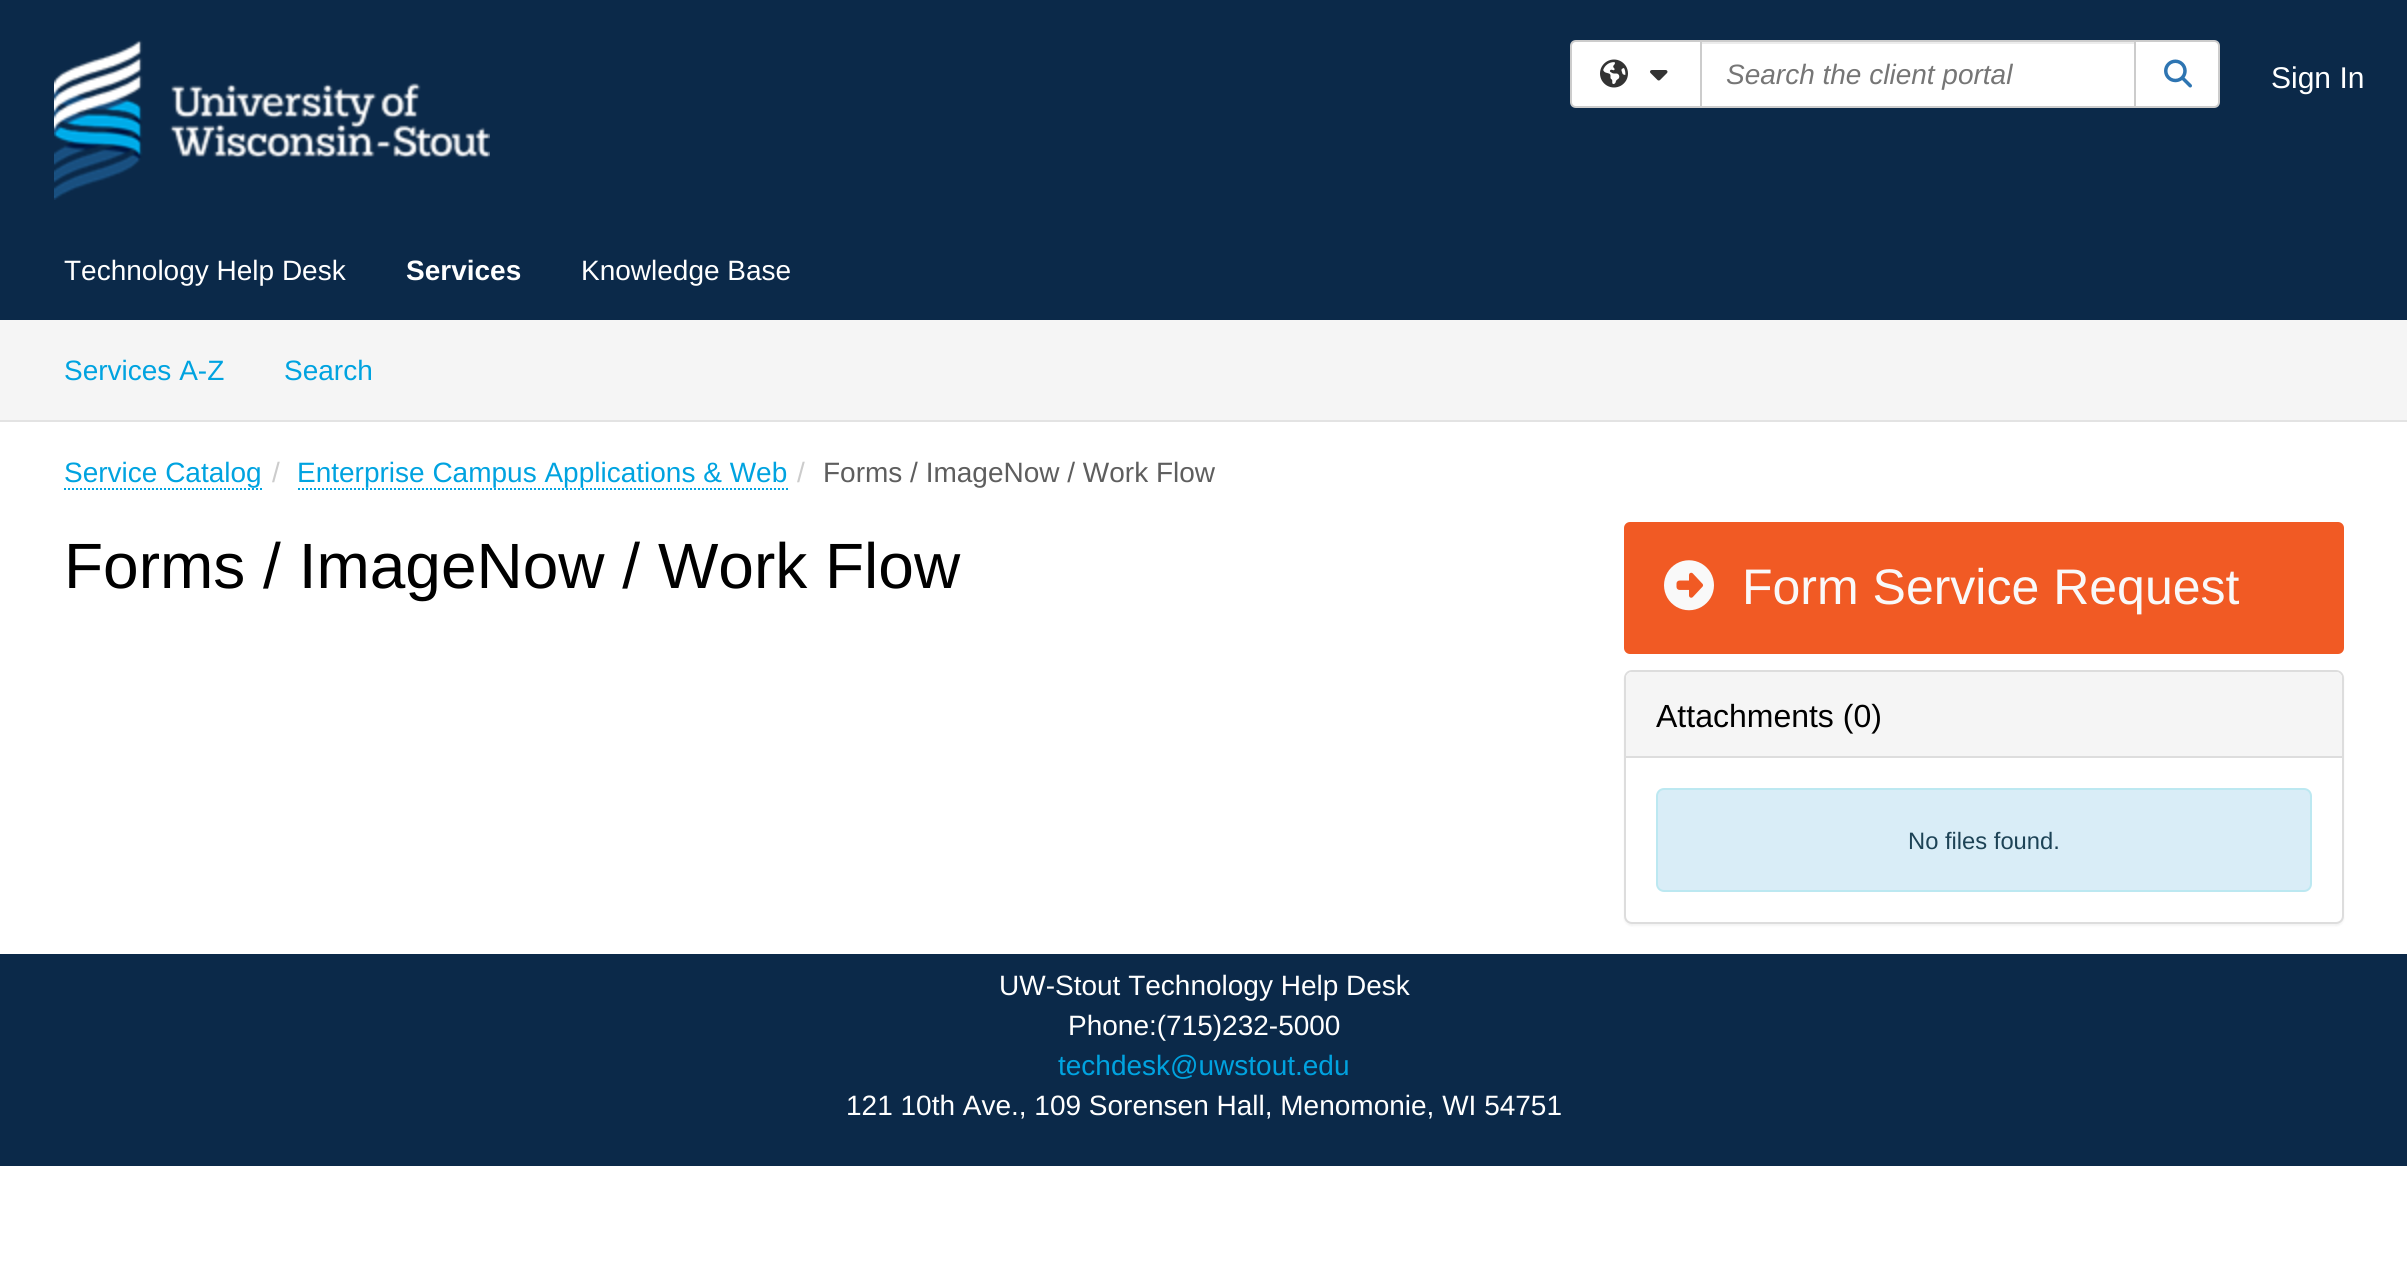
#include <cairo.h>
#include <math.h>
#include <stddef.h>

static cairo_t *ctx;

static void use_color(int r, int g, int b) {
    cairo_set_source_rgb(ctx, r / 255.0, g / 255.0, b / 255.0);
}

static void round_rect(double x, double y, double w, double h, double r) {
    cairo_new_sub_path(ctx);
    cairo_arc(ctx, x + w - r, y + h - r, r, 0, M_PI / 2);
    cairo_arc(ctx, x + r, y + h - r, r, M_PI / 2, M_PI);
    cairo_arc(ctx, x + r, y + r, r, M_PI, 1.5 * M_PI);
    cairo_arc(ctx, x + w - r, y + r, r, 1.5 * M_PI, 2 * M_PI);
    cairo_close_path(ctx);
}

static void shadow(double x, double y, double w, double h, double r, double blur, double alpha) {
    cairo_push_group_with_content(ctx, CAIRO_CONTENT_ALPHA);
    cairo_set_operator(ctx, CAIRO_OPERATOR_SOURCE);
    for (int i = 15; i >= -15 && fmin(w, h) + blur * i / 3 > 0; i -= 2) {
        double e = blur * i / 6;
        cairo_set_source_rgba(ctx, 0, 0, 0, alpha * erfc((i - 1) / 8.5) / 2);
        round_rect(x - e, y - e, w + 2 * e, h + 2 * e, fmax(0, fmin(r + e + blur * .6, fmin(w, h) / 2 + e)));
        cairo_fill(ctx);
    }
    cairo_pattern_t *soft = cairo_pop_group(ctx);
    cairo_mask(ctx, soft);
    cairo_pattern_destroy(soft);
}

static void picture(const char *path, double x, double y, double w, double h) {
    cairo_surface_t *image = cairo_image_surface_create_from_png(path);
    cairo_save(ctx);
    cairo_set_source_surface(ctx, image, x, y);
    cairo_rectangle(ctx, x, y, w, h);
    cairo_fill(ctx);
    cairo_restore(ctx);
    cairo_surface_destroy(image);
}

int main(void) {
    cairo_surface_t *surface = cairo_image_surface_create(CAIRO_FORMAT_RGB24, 2407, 1285);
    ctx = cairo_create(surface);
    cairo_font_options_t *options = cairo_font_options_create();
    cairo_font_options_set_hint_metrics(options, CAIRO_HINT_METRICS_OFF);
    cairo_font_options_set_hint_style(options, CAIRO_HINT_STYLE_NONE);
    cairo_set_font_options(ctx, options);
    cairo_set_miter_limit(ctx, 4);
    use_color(255, 255, 255);
    cairo_paint(ctx);
    use_color(11, 41, 73);
    cairo_rectangle(ctx, 0, 0, 2407, 320);
    cairo_fill(ctx);
    picture("img1.png", 54, 40, 436, 160);
    use_color(255, 255, 255);
    cairo_new_path(ctx);
    cairo_move_to(ctx, 1576, 41);
    cairo_line_to(ctx, 1701, 41);
    cairo_line_to(ctx, 1701, 107);
    cairo_line_to(ctx, 1576, 107);
    cairo_curve_to(ctx, 1573, 107, 1571, 105, 1571, 102);
    cairo_line_to(ctx, 1571, 46);
    cairo_curve_to(ctx, 1571, 43, 1573, 41, 1576, 41);
    cairo_close_path(ctx);
    cairo_fill_preserve(ctx);
    use_color(204, 204, 204);
    cairo_stroke(ctx);
    picture("img2.png", 1600, 59, 28, 29);
    picture("img3.png", 1650, 70, 18, 11);
    use_color(255, 255, 255);
    cairo_rectangle(ctx, 1702, 44, 432, 62);
    cairo_fill(ctx);
    use_color(236, 236, 236);
    cairo_rectangle(ctx, 1702, 42, 432, 2);
    cairo_fill(ctx);
    cairo_rectangle(ctx, 1701, 41, 434, 66);
    use_color(204, 204, 204);
    cairo_stroke(ctx);
    cairo_select_font_face(ctx, "Liberation Sans", CAIRO_FONT_SLANT_ITALIC, CAIRO_FONT_WEIGHT_NORMAL);
    cairo_set_font_size(ctx, 28);
    use_color(118, 118, 118);
    cairo_move_to(ctx, 1726, 84);
    cairo_show_text(ctx, "Search the client portal");
    use_color(255, 255, 255);
    cairo_new_path(ctx);
    cairo_move_to(ctx, 2135, 41);
    cairo_line_to(ctx, 2214, 41);
    cairo_curve_to(ctx, 2217, 41, 2219, 43, 2219, 46);
    cairo_line_to(ctx, 2219, 102);
    cairo_curve_to(ctx, 2219, 105, 2217, 107, 2214, 107);
    cairo_line_to(ctx, 2135, 107);
    cairo_close_path(ctx);
    cairo_fill_preserve(ctx);
    use_color(204, 204, 204);
    cairo_stroke(ctx);
    picture("img4.png", 2164, 59, 28, 29);
    cairo_select_font_face(ctx, "Liberation Sans", CAIRO_FONT_SLANT_NORMAL, CAIRO_FONT_WEIGHT_NORMAL);
    cairo_set_font_size(ctx, 30);
    use_color(255, 255, 255);
    cairo_move_to(ctx, 2271, 88);
    cairo_show_text(ctx, "Sign In");
    cairo_set_font_size(ctx, 28);
    cairo_move_to(ctx, 64, 280);
    cairo_show_text(ctx, "Technology Help Desk");
    cairo_select_font_face(ctx, "Liberation Sans", CAIRO_FONT_SLANT_NORMAL, CAIRO_FONT_WEIGHT_BOLD);
    cairo_move_to(ctx, 406, 280);
    cairo_show_text(ctx, "Services");
    cairo_select_font_face(ctx, "Liberation Sans", CAIRO_FONT_SLANT_NORMAL, CAIRO_FONT_WEIGHT_NORMAL);
    cairo_move_to(ctx, 581, 280);
    cairo_show_text(ctx, "Knowledge Base");
    use_color(245, 245, 245);
    cairo_rectangle(ctx, 0, 320, 2407, 100);
    cairo_fill(ctx);
    use_color(227, 227, 227);
    cairo_rectangle(ctx, 0, 420, 2407, 2);
    cairo_fill(ctx);
    use_color(0, 163, 224);
    cairo_move_to(ctx, 64, 380);
    cairo_show_text(ctx, "Services A-Z");
    cairo_move_to(ctx, 284, 380);
    cairo_show_text(ctx, "Search");
    cairo_move_to(ctx, 64, 482);
    cairo_show_text(ctx, "Service Catalog");
    cairo_new_path(ctx);
    cairo_move_to(ctx, 64, 489);
    cairo_line_to(ctx, 262, 489);
    cairo_set_dash(ctx, (double[]){2, 2}, 2, 0);
    cairo_stroke(ctx);
    use_color(204, 204, 204);
    cairo_move_to(ctx, 272, 482);
    cairo_show_text(ctx, "/");
    use_color(0, 163, 224);
    cairo_move_to(ctx, 297, 482);
    cairo_show_text(ctx, "Enterprise Campus Applications & Web");
    cairo_new_path(ctx);
    cairo_move_to(ctx, 298, 489);
    cairo_line_to(ctx, 788, 489);
    cairo_stroke(ctx);
    use_color(204, 204, 204);
    cairo_move_to(ctx, 797, 482);
    cairo_show_text(ctx, "/");
    use_color(94, 94, 94);
    cairo_move_to(ctx, 823, 482);
    cairo_show_text(ctx, "Forms / ImageNow / Work Flow");
    cairo_set_font_size(ctx, 64);
    use_color(0, 0, 0);
    cairo_move_to(ctx, 64, 588);
    cairo_show_text(ctx, "Forms / ImageNow / Work Flow");
    use_color(241, 90, 36);
    round_rect(1624, 522, 720, 132, 6);
    cairo_fill(ctx);
    picture("img5.png", 1664, 560, 50, 51);
    cairo_set_font_size(ctx, 50);
    use_color(249, 249, 249);
    cairo_move_to(ctx, 1742, 604);
    cairo_show_text(ctx, "Form Service Request");
    use_color(0, 0, 0);
    shadow(1624, 672, 720, 254, 8, 1, 0.05);
    use_color(255, 255, 255);
    round_rect(1625, 671, 718, 252, 7);
    cairo_fill_preserve(ctx);
    use_color(221, 221, 221);
    cairo_set_dash(ctx, NULL, 0, 0);
    cairo_stroke(ctx);
    use_color(245, 245, 245);
    cairo_new_path(ctx);
    cairo_move_to(ctx, 1632, 672);
    cairo_line_to(ctx, 2336, 672);
    cairo_curve_to(ctx, 2339.5, 672, 2342, 674.5, 2342, 678);
    cairo_line_to(ctx, 2342, 758);
    cairo_line_to(ctx, 1626, 758);
    cairo_line_to(ctx, 1626, 678);
    cairo_curve_to(ctx, 1626, 674.5, 1628.5, 672, 1632, 672);
    cairo_close_path(ctx);
    cairo_fill(ctx);
    use_color(221, 221, 221);
    cairo_rectangle(ctx, 1626, 756, 716, 2);
    cairo_fill(ctx);
    cairo_set_font_size(ctx, 32);
    use_color(0, 0, 0);
    cairo_move_to(ctx, 1656, 727);
    cairo_show_text(ctx, "Attachments (0)");
    use_color(217, 237, 247);
    round_rect(1657, 789, 654, 102, 7);
    cairo_fill_preserve(ctx);
    use_color(188, 232, 241);
    cairo_stroke(ctx);
    cairo_set_font_size(ctx, 23.75);
    use_color(29, 67, 86);
    cairo_move_to(ctx, 1908, 849);
    cairo_show_text(ctx, "No files found.");
    use_color(11, 41, 73);
    cairo_rectangle(ctx, 0, 954, 2407, 212);
    cairo_fill(ctx);
    cairo_set_font_size(ctx, 28);
    use_color(255, 255, 255);
    cairo_move_to(ctx, 999, 995);
    cairo_show_text(ctx, "UW-Stout Technology Help Desk");
    cairo_move_to(ctx, 1068, 1035);
    cairo_show_text(ctx, "Phone:(715)232-5000");
    use_color(0, 163, 224);
    cairo_move_to(ctx, 1058, 1075);
    cairo_show_text(ctx, "techdesk@uwstout.edu");
    use_color(255, 255, 255);
    cairo_move_to(ctx, 846, 1115);
    cairo_show_text(ctx, "121 10th Ave., 109 Sorensen Hall, Menomonie, WI 54751");
    cairo_surface_write_to_png(surface, "result.png");
    cairo_font_options_destroy(options);
    cairo_destroy(ctx);
    cairo_surface_destroy(surface);
    return 0;
}
